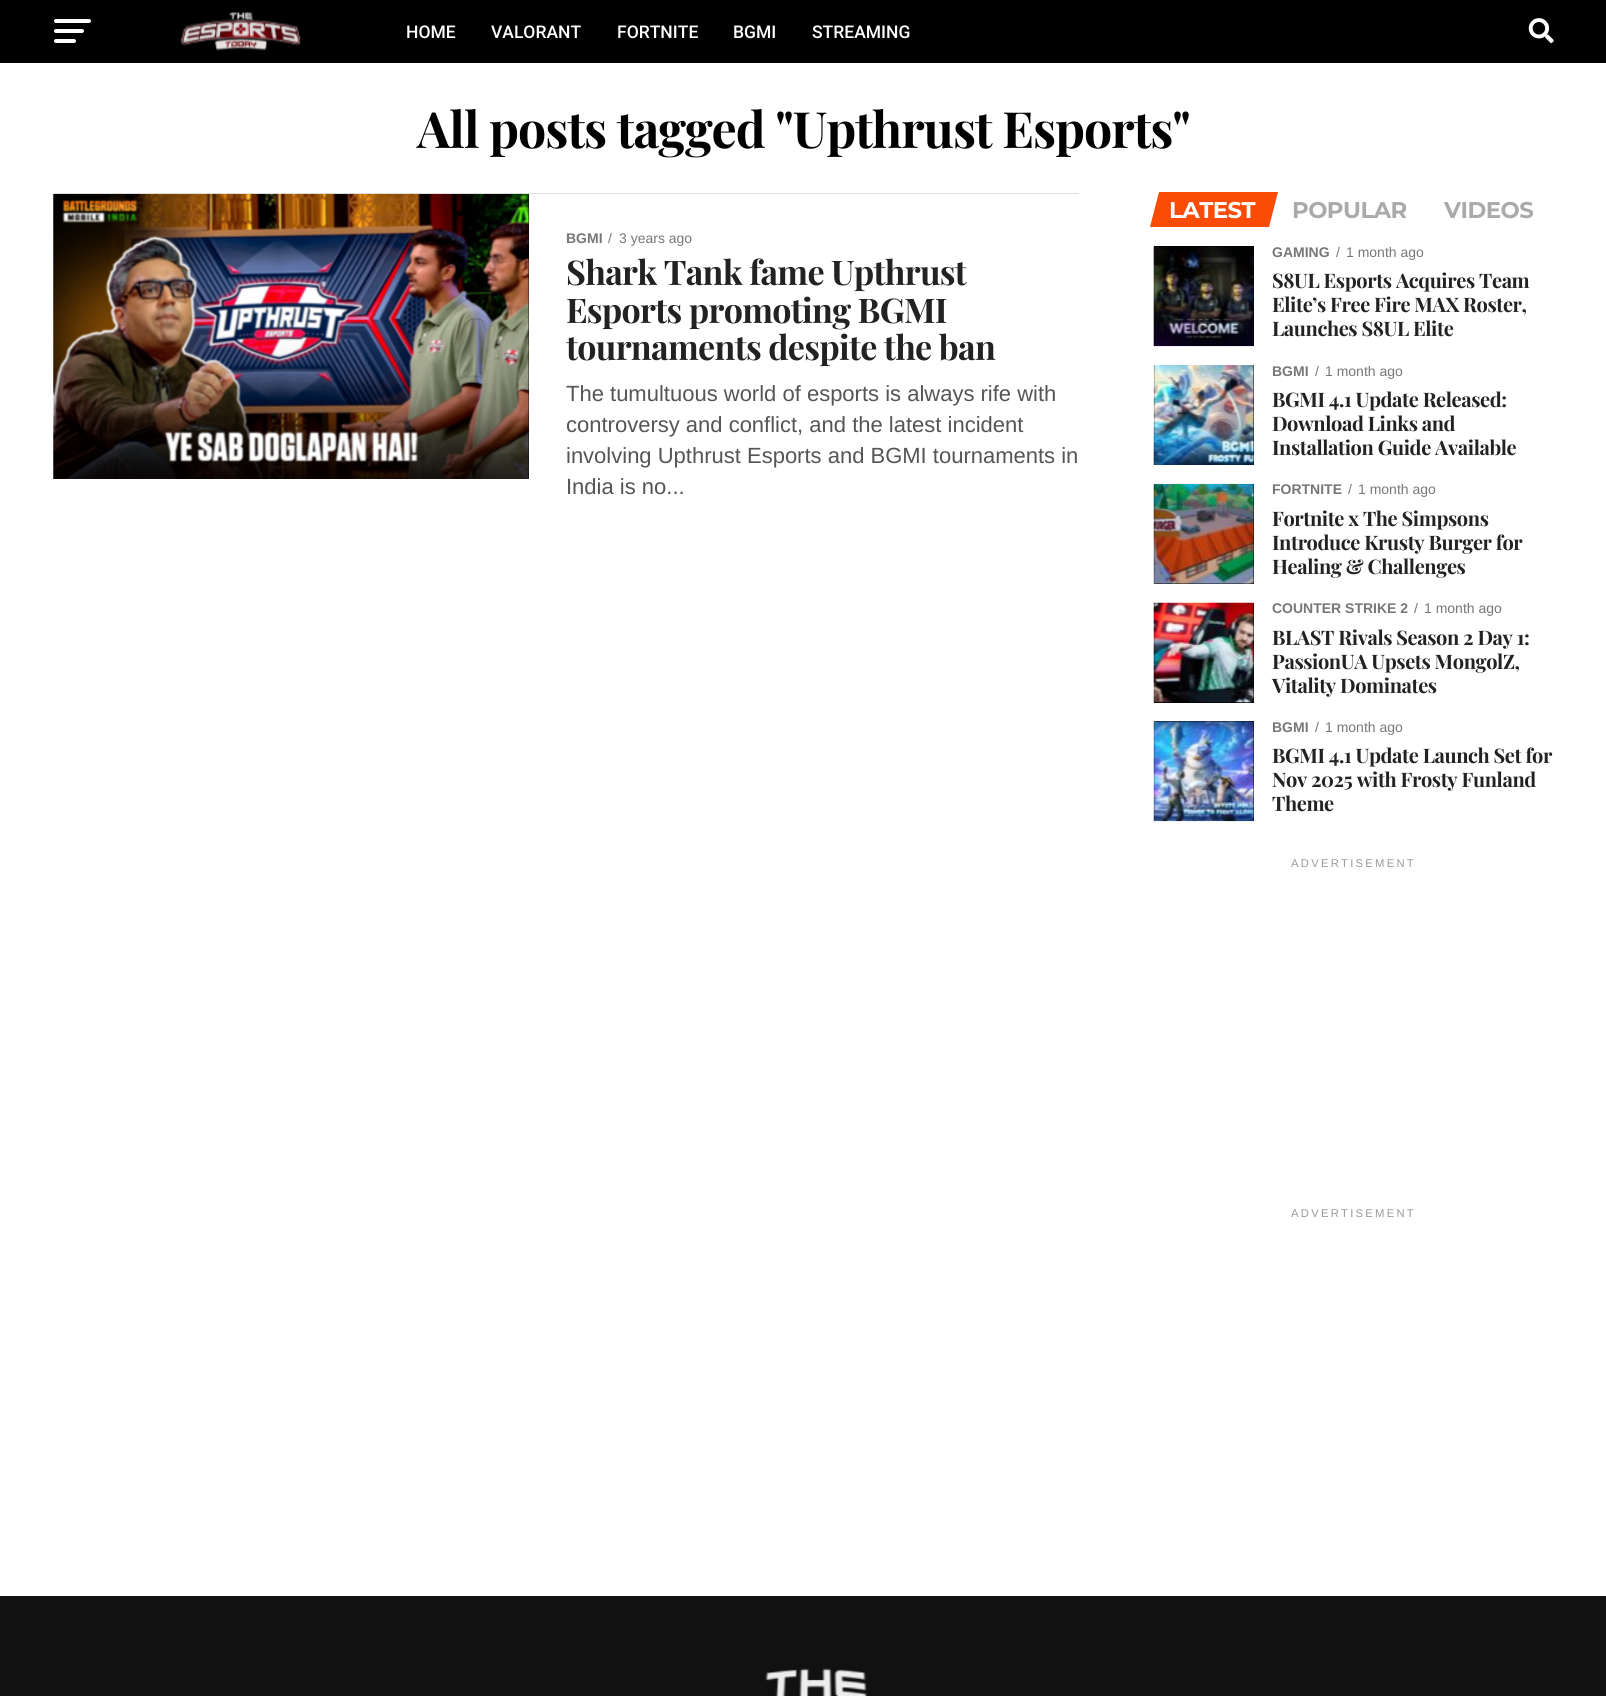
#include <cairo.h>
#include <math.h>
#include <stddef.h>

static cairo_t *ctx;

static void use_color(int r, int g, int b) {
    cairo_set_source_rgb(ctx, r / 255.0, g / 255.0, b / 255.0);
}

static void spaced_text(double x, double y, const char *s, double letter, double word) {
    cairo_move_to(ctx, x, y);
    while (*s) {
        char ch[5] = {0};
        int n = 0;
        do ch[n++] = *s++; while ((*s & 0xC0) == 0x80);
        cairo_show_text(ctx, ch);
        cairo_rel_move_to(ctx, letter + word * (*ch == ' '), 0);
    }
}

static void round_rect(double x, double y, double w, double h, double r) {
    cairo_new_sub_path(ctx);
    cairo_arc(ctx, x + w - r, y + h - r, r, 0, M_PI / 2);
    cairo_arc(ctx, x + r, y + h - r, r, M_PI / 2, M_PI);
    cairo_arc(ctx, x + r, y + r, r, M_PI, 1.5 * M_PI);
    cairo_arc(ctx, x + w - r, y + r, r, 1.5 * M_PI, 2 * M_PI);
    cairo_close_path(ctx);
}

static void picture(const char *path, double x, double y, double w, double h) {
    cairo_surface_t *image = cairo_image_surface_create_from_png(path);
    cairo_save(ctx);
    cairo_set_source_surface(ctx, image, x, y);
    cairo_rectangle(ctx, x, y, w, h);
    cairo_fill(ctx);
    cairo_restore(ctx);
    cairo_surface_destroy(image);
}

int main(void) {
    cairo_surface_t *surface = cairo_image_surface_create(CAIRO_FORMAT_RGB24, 1606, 1696);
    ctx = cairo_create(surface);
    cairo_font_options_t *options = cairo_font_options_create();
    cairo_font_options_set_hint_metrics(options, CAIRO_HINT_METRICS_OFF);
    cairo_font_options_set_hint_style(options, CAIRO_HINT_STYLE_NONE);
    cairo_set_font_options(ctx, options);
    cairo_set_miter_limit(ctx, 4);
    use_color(255, 255, 255);
    cairo_paint(ctx);
    use_color(0, 0, 0);
    cairo_rectangle(ctx, 0, 0, 1606, 63);
    cairo_fill(ctx);
    use_color(255, 255, 255);
    round_rect(54, 19, 37, 4, 2);
    cairo_fill(ctx);
    round_rect(54, 29, 30, 4, 2);
    cairo_fill(ctx);
    round_rect(54, 39, 22, 4, 2);
    cairo_fill(ctx);
    picture("img1.png", 181, 12, 120, 39);
    cairo_select_font_face(ctx, "Roboto Medium", CAIRO_FONT_SLANT_NORMAL, CAIRO_FONT_WEIGHT_NORMAL);
    cairo_set_font_size(ctx, 17.5);
    cairo_move_to(ctx, 406, 38);
    cairo_show_text(ctx, "HOME");
    cairo_move_to(ctx, 491, 38);
    cairo_show_text(ctx, "VALORANT");
    cairo_move_to(ctx, 617, 38);
    cairo_show_text(ctx, "FORTNITE");
    cairo_move_to(ctx, 733, 38);
    cairo_show_text(ctx, "BGMI");
    cairo_move_to(ctx, 812, 38);
    cairo_show_text(ctx, "STREAMING");
    picture("img2.png", 1528, 18, 26, 26);
    cairo_select_font_face(ctx, "Playfair Display", CAIRO_FONT_SLANT_NORMAL, CAIRO_FONT_WEIGHT_BOLD);
    cairo_set_font_size(ctx, 50);
    use_color(0, 0, 0);
    spaced_text(417, 148, "All posts tagged \"Upthrust Esports\"", -1, 0);
    use_color(221, 221, 221);
    cairo_rectangle(ctx, 54, 193, 1025, 1);
    cairo_fill(ctx);
    use_color(0, 0, 0);
    cairo_rectangle(ctx, 54, 194, 475, 285);
    cairo_fill(ctx);
    picture("img3.png", 53, 194, 476, 285);
    cairo_select_font_face(ctx, "Liberation Sans", CAIRO_FONT_SLANT_NORMAL, CAIRO_FONT_WEIGHT_BOLD);
    cairo_set_font_size(ctx, 14);
    use_color(119, 119, 119);
    cairo_move_to(ctx, 566, 243);
    cairo_show_text(ctx, "BGMI");
    cairo_select_font_face(ctx, "Liberation Sans", CAIRO_FONT_SLANT_NORMAL, CAIRO_FONT_WEIGHT_NORMAL);
    cairo_move_to(ctx, 608, 243);
    cairo_show_text(ctx, "/");
    cairo_move_to(ctx, 619, 243);
    cairo_show_text(ctx, "3 years ago");
    cairo_select_font_face(ctx, "Playfair Display", CAIRO_FONT_SLANT_NORMAL, CAIRO_FONT_WEIGHT_BOLD);
    cairo_set_font_size(ctx, 34);
    use_color(34, 34, 34);
    spaced_text(566, 285, "Shark Tank fame Upthrust", -0.7, 0);
    spaced_text(566, 323, "Esports promoting BGMI", -0.7, 0);
    spaced_text(566, 360, "tournaments despite the ban", -0.7, 0);
    cairo_select_font_face(ctx, "Liberation Sans", CAIRO_FONT_SLANT_NORMAL, CAIRO_FONT_WEIGHT_NORMAL);
    cairo_set_font_size(ctx, 22);
    use_color(85, 85, 85);
    cairo_move_to(ctx, 566, 401);
    cairo_show_text(ctx, "The tumultuous world of esports is always rife with");
    cairo_move_to(ctx, 566, 432);
    cairo_show_text(ctx, "controversy and conflict, and the latest incident");
    cairo_move_to(ctx, 566, 463);
    cairo_show_text(ctx, "involving Upthrust Esports and BGMI tournaments in");
    cairo_move_to(ctx, 566, 494);
    cairo_show_text(ctx, "India is no...");
    use_color(250, 75, 7);
    cairo_new_path(ctx);
    cairo_move_to(ctx, 1159, 192);
    cairo_line_to(ctx, 1278, 192);
    cairo_line_to(ctx, 1269, 227);
    cairo_line_to(ctx, 1150, 227);
    cairo_close_path(ctx);
    cairo_fill(ctx);
    cairo_select_font_face(ctx, "Montserrat", CAIRO_FONT_SLANT_NORMAL, CAIRO_FONT_WEIGHT_BOLD);
    cairo_set_font_size(ctx, 22.75);
    use_color(255, 255, 255);
    spaced_text(1169, 218, "LATEST", -0.5, 0);
    use_color(170, 170, 170);
    spaced_text(1292, 218, "POPULAR", -0.5, 0);
    spaced_text(1444, 218, "VIDEOS", -0.5, 0);
    use_color(0, 0, 0);
    cairo_rectangle(ctx, 1154, 246, 100, 100);
    cairo_fill(ctx);
    picture("img4.png", 1153, 246, 101, 101);
    cairo_select_font_face(ctx, "Liberation Sans", CAIRO_FONT_SLANT_NORMAL, CAIRO_FONT_WEIGHT_BOLD);
    cairo_set_font_size(ctx, 14);
    use_color(119, 119, 119);
    cairo_move_to(ctx, 1272, 257);
    cairo_show_text(ctx, "GAMING");
    cairo_select_font_face(ctx, "Liberation Sans", CAIRO_FONT_SLANT_NORMAL, CAIRO_FONT_WEIGHT_NORMAL);
    cairo_move_to(ctx, 1336, 257);
    cairo_show_text(ctx, "/");
    cairo_move_to(ctx, 1346, 257);
    cairo_show_text(ctx, "1 month ago");
    cairo_select_font_face(ctx, "Playfair Display", CAIRO_FONT_SLANT_NORMAL, CAIRO_FONT_WEIGHT_BOLD);
    cairo_set_font_size(ctx, 20);
    use_color(34, 34, 34);
    spaced_text(1272, 288, "S8UL Esports Acquires Team", -0.4, 0);
    spaced_text(1272, 312, "Elite’s Free Fire MAX Roster,", -0.4, 0);
    spaced_text(1272, 336, "Launches S8UL Elite", -0.4, 0);
    use_color(0, 0, 0);
    cairo_rectangle(ctx, 1154, 365, 100, 100);
    cairo_fill(ctx);
    picture("img5.png", 1153, 365, 101, 100);
    cairo_select_font_face(ctx, "Liberation Sans", CAIRO_FONT_SLANT_NORMAL, CAIRO_FONT_WEIGHT_BOLD);
    cairo_set_font_size(ctx, 14);
    use_color(119, 119, 119);
    cairo_move_to(ctx, 1272, 376);
    cairo_show_text(ctx, "BGMI");
    cairo_select_font_face(ctx, "Liberation Sans", CAIRO_FONT_SLANT_NORMAL, CAIRO_FONT_WEIGHT_NORMAL);
    cairo_move_to(ctx, 1315, 376);
    cairo_show_text(ctx, "/");
    cairo_move_to(ctx, 1325, 376);
    cairo_show_text(ctx, "1 month ago");
    cairo_select_font_face(ctx, "Playfair Display", CAIRO_FONT_SLANT_NORMAL, CAIRO_FONT_WEIGHT_BOLD);
    cairo_set_font_size(ctx, 20);
    use_color(34, 34, 34);
    spaced_text(1272, 407, "BGMI 4.1 Update Released:", -0.4, 0);
    spaced_text(1272, 431, "Download Links and", -0.4, 0);
    spaced_text(1272, 455, "Installation Guide Available", -0.4, 0);
    use_color(0, 0, 0);
    cairo_rectangle(ctx, 1154, 484, 100, 100);
    cairo_fill(ctx);
    picture("img6.png", 1153, 483, 101, 101);
    cairo_select_font_face(ctx, "Liberation Sans", CAIRO_FONT_SLANT_NORMAL, CAIRO_FONT_WEIGHT_BOLD);
    cairo_set_font_size(ctx, 14);
    use_color(119, 119, 119);
    cairo_move_to(ctx, 1272, 494);
    cairo_show_text(ctx, "FORTNITE");
    cairo_select_font_face(ctx, "Liberation Sans", CAIRO_FONT_SLANT_NORMAL, CAIRO_FONT_WEIGHT_NORMAL);
    cairo_move_to(ctx, 1348, 494);
    cairo_show_text(ctx, "/");
    cairo_move_to(ctx, 1358, 494);
    cairo_show_text(ctx, "1 month ago");
    cairo_select_font_face(ctx, "Playfair Display", CAIRO_FONT_SLANT_NORMAL, CAIRO_FONT_WEIGHT_BOLD);
    cairo_set_font_size(ctx, 20);
    use_color(34, 34, 34);
    spaced_text(1272, 526, "Fortnite x The Simpsons", -0.4, 0);
    spaced_text(1272, 550, "Introduce Krusty Burger for", -0.4, 0);
    spaced_text(1272, 574, "Healing & Challenges", -0.4, 0);
    use_color(0, 0, 0);
    cairo_rectangle(ctx, 1154, 603, 100, 100);
    cairo_fill(ctx);
    picture("img7.png", 1153, 602, 101, 101);
    cairo_select_font_face(ctx, "Liberation Sans", CAIRO_FONT_SLANT_NORMAL, CAIRO_FONT_WEIGHT_BOLD);
    cairo_set_font_size(ctx, 14);
    use_color(119, 119, 119);
    cairo_move_to(ctx, 1272, 613);
    cairo_show_text(ctx, "COUNTER STRIKE 2");
    cairo_select_font_face(ctx, "Liberation Sans", CAIRO_FONT_SLANT_NORMAL, CAIRO_FONT_WEIGHT_NORMAL);
    cairo_move_to(ctx, 1414, 613);
    cairo_show_text(ctx, "/");
    cairo_move_to(ctx, 1424, 613);
    cairo_show_text(ctx, "1 month ago");
    cairo_select_font_face(ctx, "Playfair Display", CAIRO_FONT_SLANT_NORMAL, CAIRO_FONT_WEIGHT_BOLD);
    cairo_set_font_size(ctx, 20);
    use_color(34, 34, 34);
    spaced_text(1272, 645, "BLAST Rivals Season 2 Day 1:", -0.4, 0);
    spaced_text(1272, 669, "PassionUA Upsets MongolZ,", -0.4, 0);
    spaced_text(1272, 693, "Vitality Dominates", -0.4, 0);
    use_color(0, 0, 0);
    cairo_rectangle(ctx, 1154, 721, 100, 100);
    cairo_fill(ctx);
    picture("img8.png", 1153, 721, 101, 101);
    cairo_select_font_face(ctx, "Liberation Sans", CAIRO_FONT_SLANT_NORMAL, CAIRO_FONT_WEIGHT_BOLD);
    cairo_set_font_size(ctx, 14);
    use_color(119, 119, 119);
    cairo_move_to(ctx, 1272, 732);
    cairo_show_text(ctx, "BGMI");
    cairo_select_font_face(ctx, "Liberation Sans", CAIRO_FONT_SLANT_NORMAL, CAIRO_FONT_WEIGHT_NORMAL);
    cairo_move_to(ctx, 1315, 732);
    cairo_show_text(ctx, "/");
    cairo_move_to(ctx, 1325, 732);
    cairo_show_text(ctx, "1 month ago");
    cairo_select_font_face(ctx, "Playfair Display", CAIRO_FONT_SLANT_NORMAL, CAIRO_FONT_WEIGHT_BOLD);
    cairo_set_font_size(ctx, 20);
    use_color(34, 34, 34);
    spaced_text(1272, 763, "BGMI 4.1 Update Launch Set for", -0.4, 0);
    spaced_text(1272, 787, "Nov 2025 with Frosty Funland", -0.4, 0);
    spaced_text(1272, 811, "Theme", -0.4, 0);
    cairo_select_font_face(ctx, "Liberation Sans", CAIRO_FONT_SLANT_NORMAL, CAIRO_FONT_WEIGHT_NORMAL);
    cairo_set_font_size(ctx, 11.25);
    use_color(153, 153, 153);
    spaced_text(1291, 867, "ADVERTISEMENT", 2.25, 0);
    spaced_text(1291, 1217, "ADVERTISEMENT", 2.25, 0);
    use_color(17, 17, 17);
    cairo_rectangle(ctx, 0, 1596, 1606, 100);
    cairo_fill(ctx);
    picture("img9.png", 765, 1668, 102, 28);
    cairo_surface_write_to_png(surface, "result.png");
    cairo_font_options_destroy(options);
    cairo_destroy(ctx);
    cairo_surface_destroy(surface);
    return 0;
}
